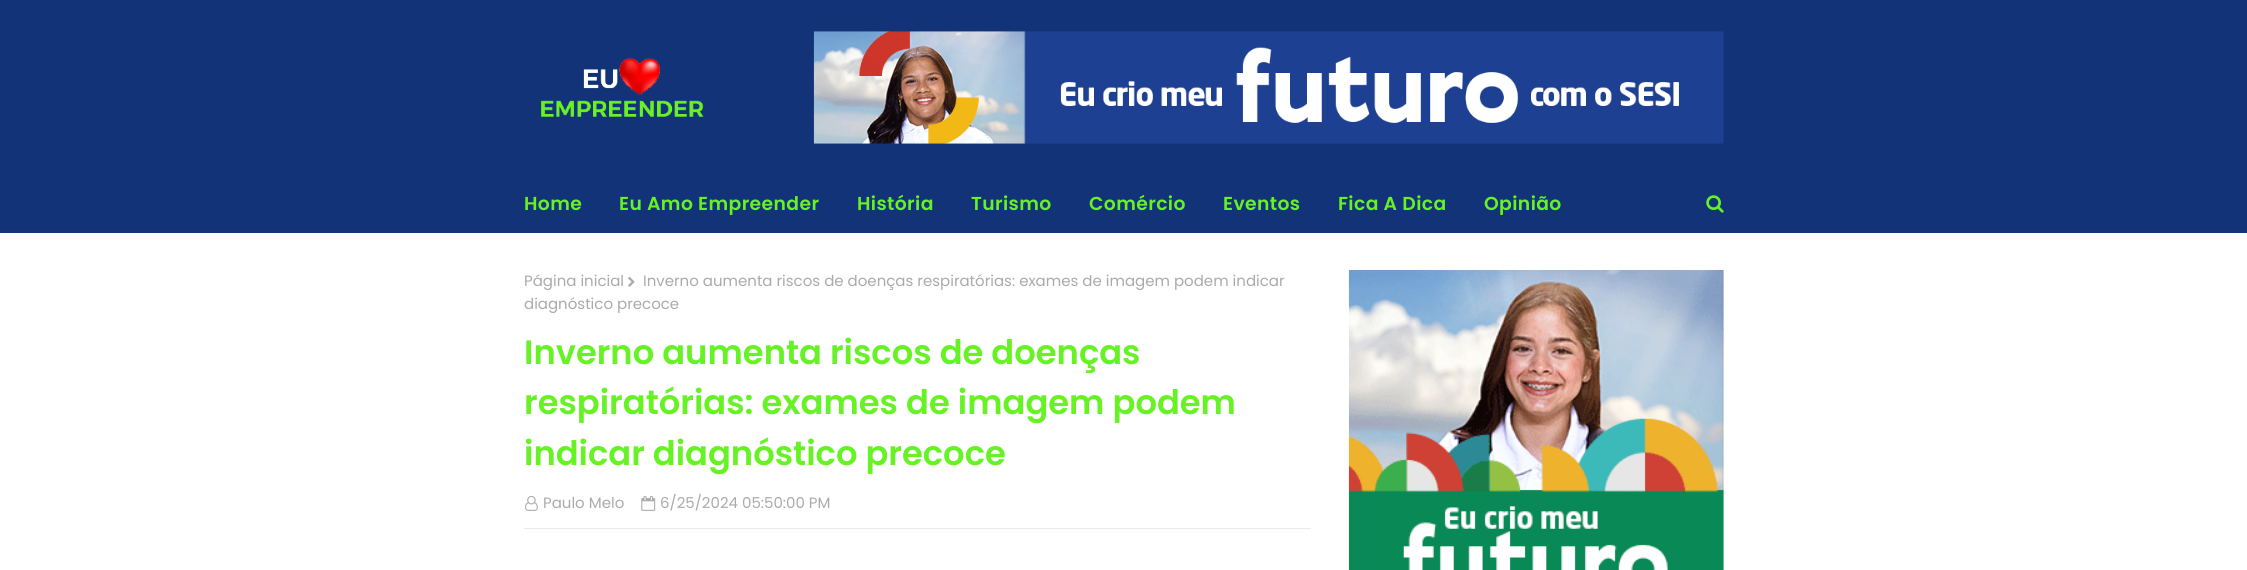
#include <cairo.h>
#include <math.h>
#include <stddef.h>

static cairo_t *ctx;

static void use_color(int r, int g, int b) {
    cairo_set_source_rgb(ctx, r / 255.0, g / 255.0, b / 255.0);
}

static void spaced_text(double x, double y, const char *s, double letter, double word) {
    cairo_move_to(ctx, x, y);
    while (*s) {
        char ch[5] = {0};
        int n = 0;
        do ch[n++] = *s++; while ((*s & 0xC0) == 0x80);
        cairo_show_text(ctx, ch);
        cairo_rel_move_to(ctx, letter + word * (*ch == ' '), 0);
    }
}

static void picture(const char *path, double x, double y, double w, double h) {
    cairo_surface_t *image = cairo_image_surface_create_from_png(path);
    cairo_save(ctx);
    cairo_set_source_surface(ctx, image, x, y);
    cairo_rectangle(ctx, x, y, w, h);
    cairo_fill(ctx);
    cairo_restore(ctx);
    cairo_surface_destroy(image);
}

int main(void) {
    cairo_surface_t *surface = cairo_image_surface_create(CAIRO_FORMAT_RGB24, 2247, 570);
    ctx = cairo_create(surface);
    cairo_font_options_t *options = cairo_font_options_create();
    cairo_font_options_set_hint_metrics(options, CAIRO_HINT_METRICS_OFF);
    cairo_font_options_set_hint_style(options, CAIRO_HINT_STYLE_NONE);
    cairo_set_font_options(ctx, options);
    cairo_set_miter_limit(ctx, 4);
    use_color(255, 255, 255);
    cairo_paint(ctx);
    use_color(19, 51, 121);
    cairo_rectangle(ctx, 0, 0, 2247, 233);
    cairo_fill(ctx);
    picture("img1.png", 541, 58, 163, 59);
    picture("img2.png", 813, 31, 911, 113);
    cairo_select_font_face(ctx, "Poppins SemiBold", CAIRO_FONT_SLANT_NORMAL, CAIRO_FONT_WEIGHT_NORMAL);
    cairo_set_font_size(ctx, 18.75);
    use_color(102, 242, 37);
    spaced_text(524, 210, "Home", 0.4, 0);
    spaced_text(619, 210, "Eu Amo Empreender", 0.4, 0);
    spaced_text(857, 210, "História", 0.4, 0);
    spaced_text(971, 210, "Turismo", 0.4, 0);
    spaced_text(1089, 210, "Comércio", 0.4, 0);
    spaced_text(1223, 210, "Eventos", 0.4, 0);
    spaced_text(1338, 210, "Fica A Dica", 0.4, 0);
    spaced_text(1484, 210, "Opinião", 0.4, 0);
    picture("img3.png", 1706, 195, 18, 18);
    cairo_select_font_face(ctx, "Poppins", CAIRO_FONT_SLANT_NORMAL, CAIRO_FONT_WEIGHT_NORMAL);
    cairo_set_font_size(ctx, 15);
    use_color(170, 170, 170);
    cairo_move_to(ctx, 524, 286);
    cairo_show_text(ctx, "Página inicial");
    picture("img4.png", 628, 276, 7, 11);
    cairo_move_to(ctx, 643, 286);
    cairo_show_text(ctx, "Inverno aumenta riscos de doenças respiratórias: exames de imagem podem indicar");
    cairo_move_to(ctx, 524, 309);
    cairo_show_text(ctx, "diagnóstico precoce");
    cairo_select_font_face(ctx, "Poppins SemiBold", CAIRO_FONT_SLANT_NORMAL, CAIRO_FONT_WEIGHT_NORMAL);
    cairo_set_font_size(ctx, 33.75);
    use_color(102, 242, 37);
    cairo_move_to(ctx, 524, 364);
    cairo_show_text(ctx, "Inverno aumenta riscos de doenças");
    cairo_move_to(ctx, 524, 414);
    cairo_show_text(ctx, "respiratórias: exames de imagem podem");
    cairo_move_to(ctx, 524, 465);
    cairo_show_text(ctx, "indicar diagnóstico precoce");
    picture("img5.png", 525, 495, 13, 16);
    cairo_select_font_face(ctx, "Poppins", CAIRO_FONT_SLANT_NORMAL, CAIRO_FONT_WEIGHT_NORMAL);
    cairo_set_font_size(ctx, 15);
    use_color(170, 170, 170);
    cairo_move_to(ctx, 543, 508);
    cairo_show_text(ctx, "Paulo Melo");
    picture("img6.png", 641, 495, 15, 16);
    cairo_move_to(ctx, 660, 508);
    cairo_show_text(ctx, "6/25/2024 05:50:00 PM");
    use_color(235, 235, 235);
    cairo_rectangle(ctx, 524, 528, 787, 1);
    cairo_fill(ctx);
    picture("img7.png", 1348, 270, 376, 300);
    cairo_surface_write_to_png(surface, "result.png");
    cairo_font_options_destroy(options);
    cairo_destroy(ctx);
    cairo_surface_destroy(surface);
    return 0;
}
